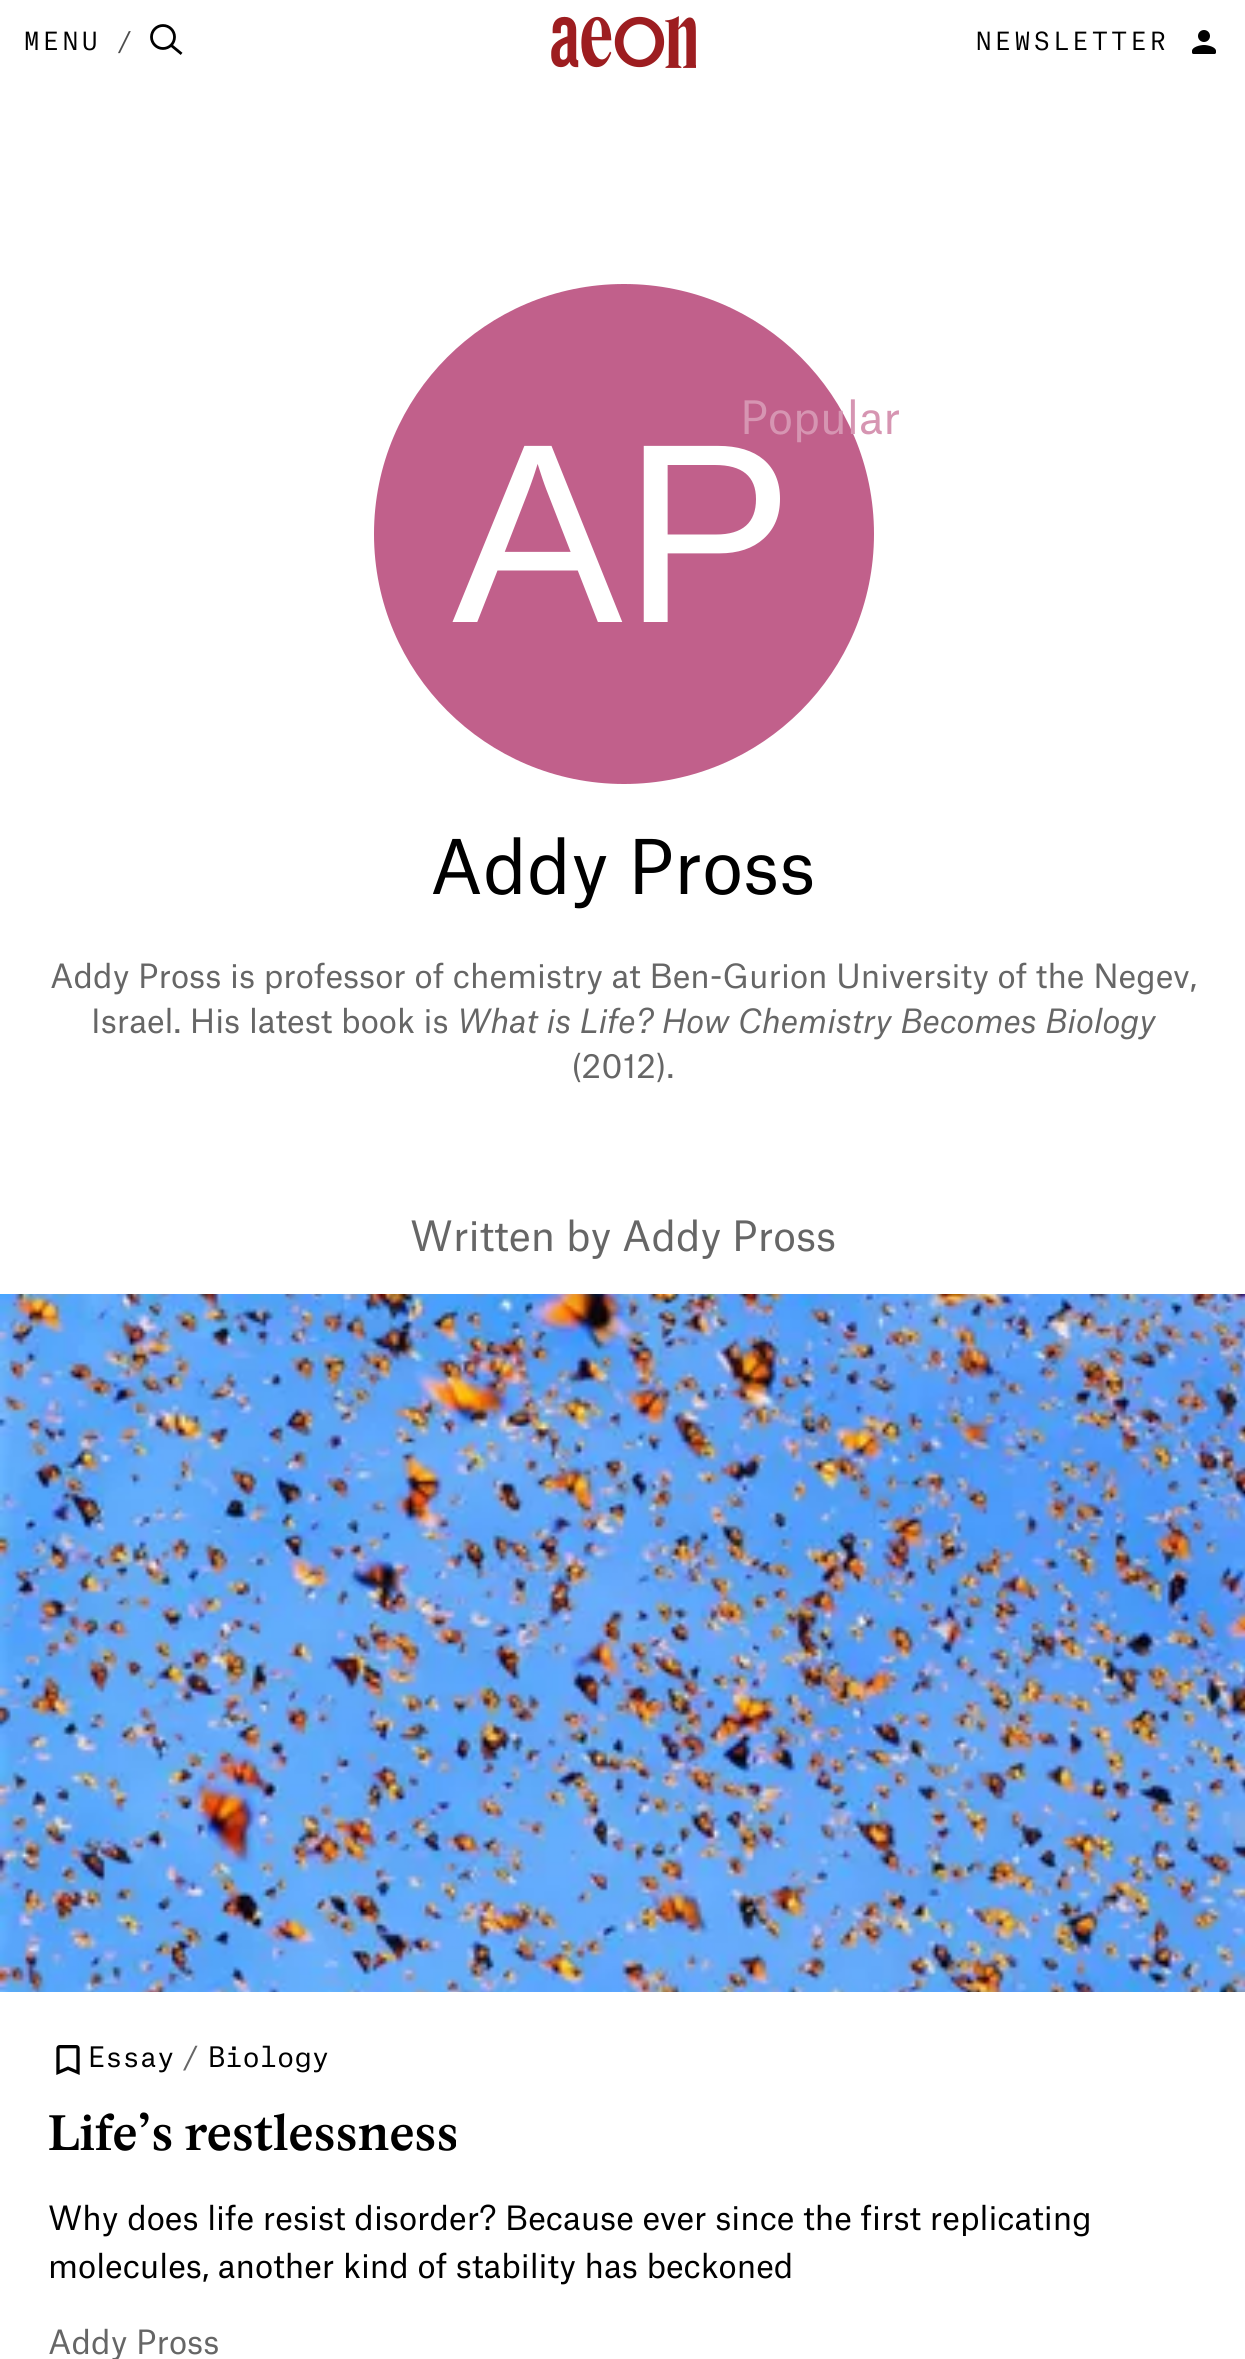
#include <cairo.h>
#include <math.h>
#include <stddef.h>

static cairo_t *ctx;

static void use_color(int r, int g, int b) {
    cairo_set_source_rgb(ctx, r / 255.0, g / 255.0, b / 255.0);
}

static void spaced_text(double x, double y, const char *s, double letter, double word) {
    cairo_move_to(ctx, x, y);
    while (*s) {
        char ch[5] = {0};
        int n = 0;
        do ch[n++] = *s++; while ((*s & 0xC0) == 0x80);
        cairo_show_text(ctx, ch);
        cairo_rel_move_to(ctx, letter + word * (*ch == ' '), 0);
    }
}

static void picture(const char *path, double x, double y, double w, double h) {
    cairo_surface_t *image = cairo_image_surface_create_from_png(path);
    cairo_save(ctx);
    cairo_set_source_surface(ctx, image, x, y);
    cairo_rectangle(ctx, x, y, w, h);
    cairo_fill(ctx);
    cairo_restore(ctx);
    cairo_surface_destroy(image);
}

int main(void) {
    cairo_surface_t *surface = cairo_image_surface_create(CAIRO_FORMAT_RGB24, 1245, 2359);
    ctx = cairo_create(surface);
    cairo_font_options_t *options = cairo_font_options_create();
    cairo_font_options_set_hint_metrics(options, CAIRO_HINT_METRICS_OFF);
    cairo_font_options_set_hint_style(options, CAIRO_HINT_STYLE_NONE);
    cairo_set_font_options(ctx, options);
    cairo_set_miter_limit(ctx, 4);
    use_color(255, 255, 255);
    cairo_paint(ctx);
    cairo_select_font_face(ctx, "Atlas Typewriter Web", CAIRO_FONT_SLANT_NORMAL, CAIRO_FONT_WEIGHT_NORMAL);
    cairo_set_font_size(ctx, 24);
    use_color(0, 0, 0);
    spaced_text(24, 50, "MENU", 4, 0);
    use_color(77, 77, 77);
    spaced_text(117, 50, "/", 1, 0);
    cairo_new_path(ctx);
    cairo_move_to(ctx, 172, 46);
    cairo_line_to(ctx, 180.5, 53);
    use_color(0, 0, 0);
    cairo_set_line_width(ctx, 2.8);
    cairo_set_line_cap(ctx, CAIRO_LINE_CAP_SQUARE);
    cairo_stroke(ctx);
    cairo_arc(ctx, 163, 37, 11.5, 0, 2 * M_PI);
    cairo_set_line_cap(ctx, CAIRO_LINE_CAP_BUTT);
    cairo_stroke(ctx);
    picture("img1.png", 551, 16, 145, 52);
    spaced_text(976, 50, "NEWSLETTER", 4, 0);
    picture("img2.png", 1192, 30, 24, 24);
    use_color(193, 96, 139);
    cairo_arc(ctx, 624, 534, 250, 0, 2 * M_PI);
    cairo_fill(ctx);
    cairo_select_font_face(ctx, "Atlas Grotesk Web", CAIRO_FONT_SLANT_NORMAL, CAIRO_FONT_WEIGHT_NORMAL);
    cairo_set_font_size(ctx, 44);
    use_color(214, 149, 178);
    cairo_move_to(ctx, 740, 434);
    cairo_show_text(ctx, "Popular");
    cairo_select_font_face(ctx, "Liberation Sans", CAIRO_FONT_SLANT_NORMAL, CAIRO_FONT_WEIGHT_NORMAL);
    cairo_set_font_size(ctx, 256);
    use_color(255, 255, 255);
    cairo_move_to(ctx, 452, 622);
    cairo_show_text(ctx, "AP");
    cairo_select_font_face(ctx, "Atlas Grotesk Web", CAIRO_FONT_SLANT_NORMAL, CAIRO_FONT_WEIGHT_NORMAL);
    cairo_set_font_size(ctx, 72);
    use_color(0, 0, 0);
    cairo_move_to(ctx, 430, 894);
    cairo_show_text(ctx, "Addy Pross");
    cairo_set_font_size(ctx, 32);
    use_color(102, 102, 102);
    cairo_move_to(ctx, 50, 988);
    cairo_show_text(ctx, "Addy Pross is professor of chemistry at Ben-Gurion University of the Negev,");
    cairo_move_to(ctx, 91, 1033);
    cairo_show_text(ctx, "Israel. His latest book is");
    cairo_select_font_face(ctx, "Atlas Grotesk Web", CAIRO_FONT_SLANT_ITALIC, CAIRO_FONT_WEIGHT_NORMAL);
    cairo_move_to(ctx, 457, 1033);
    cairo_show_text(ctx, "What is Life? How Chemistry Becomes Biology");
    cairo_select_font_face(ctx, "Atlas Grotesk Web", CAIRO_FONT_SLANT_NORMAL, CAIRO_FONT_WEIGHT_NORMAL);
    cairo_move_to(ctx, 571, 1078);
    cairo_show_text(ctx, "(2012).");
    cairo_set_font_size(ctx, 40);
    cairo_move_to(ctx, 410, 1251);
    cairo_show_text(ctx, "Written by Addy Pross");
    picture("img3.png", 0, 1294, 1245, 698);
    picture("img4.png", 56, 2045, 24, 30);
    cairo_select_font_face(ctx, "Atlas Typewriter Web", CAIRO_FONT_SLANT_NORMAL, CAIRO_FONT_WEIGHT_NORMAL);
    cairo_set_font_size(ctx, 27);
    use_color(0, 0, 0);
    cairo_move_to(ctx, 88, 2067);
    cairo_show_text(ctx, "Essay");
    use_color(102, 102, 102);
    cairo_move_to(ctx, 182, 2067);
    cairo_show_text(ctx, "/");
    use_color(0, 0, 0);
    cairo_move_to(ctx, 208, 2067);
    cairo_show_text(ctx, "Biology");
    cairo_select_font_face(ctx, "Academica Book", CAIRO_FONT_SLANT_NORMAL, CAIRO_FONT_WEIGHT_BOLD);
    cairo_set_font_size(ctx, 50);
    cairo_move_to(ctx, 48, 2150);
    cairo_show_text(ctx, "Life’s restlessness");
    cairo_select_font_face(ctx, "Atlas Grotesk Web", CAIRO_FONT_SLANT_NORMAL, CAIRO_FONT_WEIGHT_NORMAL);
    cairo_set_font_size(ctx, 32);
    cairo_move_to(ctx, 48, 2230);
    cairo_show_text(ctx, "Why does life resist disorder? Because ever since the first replicating");
    cairo_move_to(ctx, 48, 2278);
    cairo_show_text(ctx, "molecules, another kind of stability has beckoned");
    use_color(102, 102, 102);
    cairo_move_to(ctx, 48, 2354);
    cairo_show_text(ctx, "Addy Pross");
    cairo_surface_write_to_png(surface, "result.png");
    cairo_font_options_destroy(options);
    cairo_destroy(ctx);
    cairo_surface_destroy(surface);
    return 0;
}
